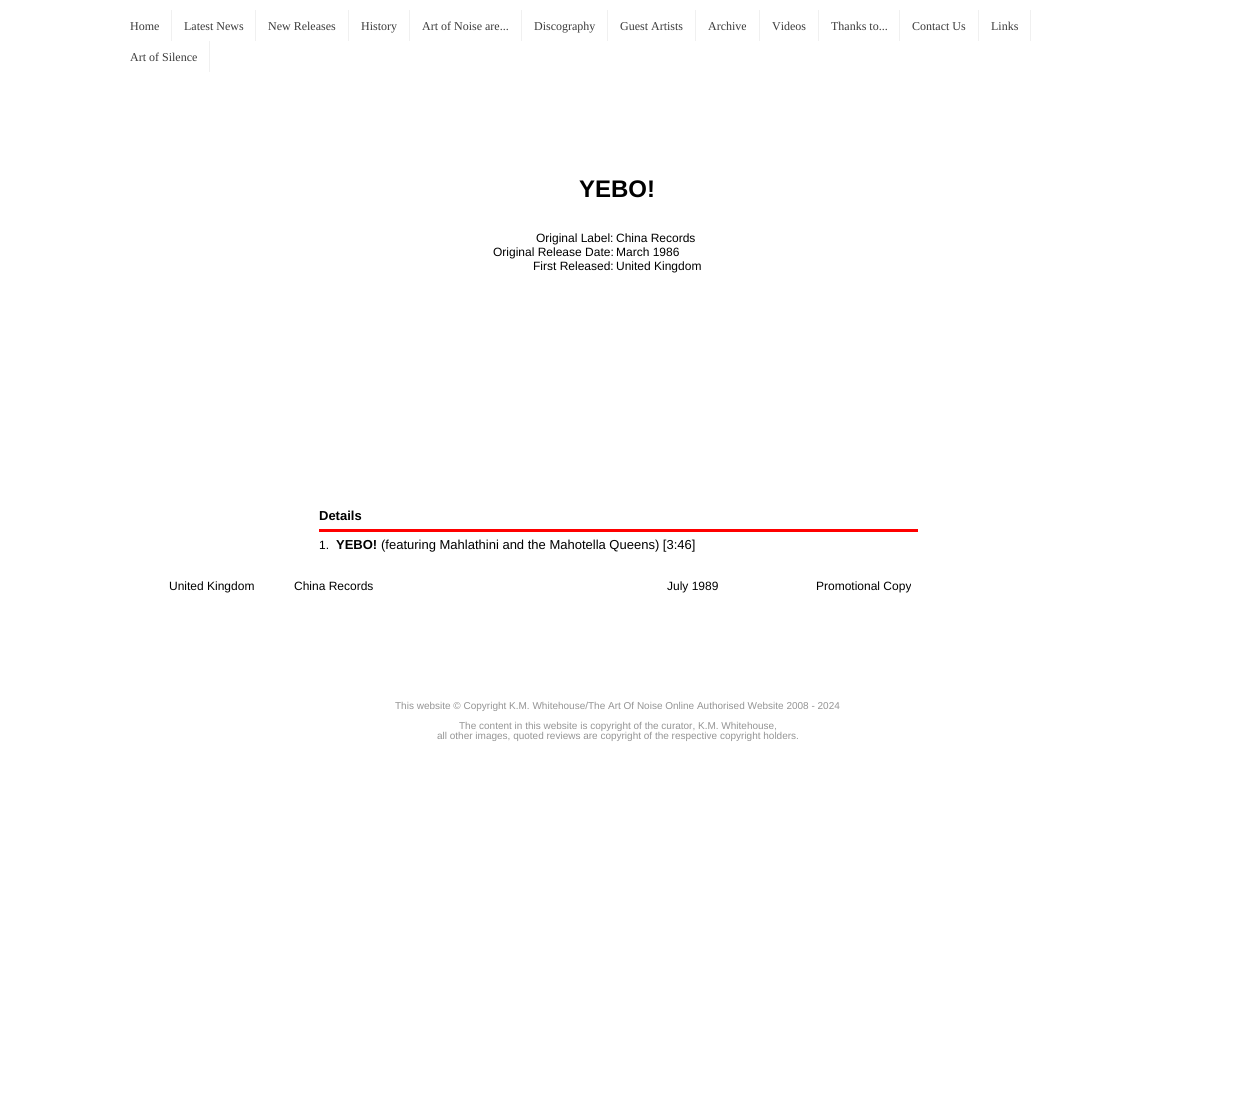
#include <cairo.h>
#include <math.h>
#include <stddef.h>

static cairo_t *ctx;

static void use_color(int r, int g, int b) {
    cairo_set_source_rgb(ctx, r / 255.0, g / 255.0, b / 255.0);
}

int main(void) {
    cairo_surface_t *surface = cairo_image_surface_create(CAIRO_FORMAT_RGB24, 1235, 1117);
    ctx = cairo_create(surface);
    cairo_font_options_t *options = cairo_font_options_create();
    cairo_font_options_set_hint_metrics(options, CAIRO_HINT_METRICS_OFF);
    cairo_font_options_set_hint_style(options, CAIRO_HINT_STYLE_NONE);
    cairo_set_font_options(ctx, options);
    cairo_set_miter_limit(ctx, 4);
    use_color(255, 255, 255);
    cairo_paint(ctx);
    use_color(240, 240, 240);
    cairo_rectangle(ctx, 171, 10, 1, 31);
    cairo_fill(ctx);
    cairo_select_font_face(ctx, "Liberation Serif", CAIRO_FONT_SLANT_NORMAL, CAIRO_FONT_WEIGHT_NORMAL);
    cairo_set_font_size(ctx, 12);
    use_color(59, 59, 59);
    cairo_move_to(ctx, 130, 30);
    cairo_show_text(ctx, "Home");
    use_color(240, 240, 240);
    cairo_rectangle(ctx, 255, 10, 1, 31);
    cairo_fill(ctx);
    use_color(59, 59, 59);
    cairo_move_to(ctx, 184, 30);
    cairo_show_text(ctx, "Latest News");
    use_color(240, 240, 240);
    cairo_rectangle(ctx, 348, 10, 1, 31);
    cairo_fill(ctx);
    use_color(59, 59, 59);
    cairo_move_to(ctx, 268, 30);
    cairo_show_text(ctx, "New Releases");
    use_color(240, 240, 240);
    cairo_rectangle(ctx, 409, 10, 1, 31);
    cairo_fill(ctx);
    use_color(59, 59, 59);
    cairo_move_to(ctx, 361, 30);
    cairo_show_text(ctx, "History");
    use_color(240, 240, 240);
    cairo_rectangle(ctx, 521, 10, 1, 31);
    cairo_fill(ctx);
    use_color(59, 59, 59);
    cairo_move_to(ctx, 422, 30);
    cairo_show_text(ctx, "Art of Noise are...");
    use_color(240, 240, 240);
    cairo_rectangle(ctx, 607, 10, 1, 31);
    cairo_fill(ctx);
    use_color(59, 59, 59);
    cairo_move_to(ctx, 534, 30);
    cairo_show_text(ctx, "Discography");
    use_color(240, 240, 240);
    cairo_rectangle(ctx, 695, 10, 1, 31);
    cairo_fill(ctx);
    use_color(59, 59, 59);
    cairo_move_to(ctx, 620, 30);
    cairo_show_text(ctx, "Guest Artists");
    use_color(240, 240, 240);
    cairo_rectangle(ctx, 759, 10, 1, 31);
    cairo_fill(ctx);
    use_color(59, 59, 59);
    cairo_move_to(ctx, 708, 30);
    cairo_show_text(ctx, "Archive");
    use_color(240, 240, 240);
    cairo_rectangle(ctx, 818, 10, 1, 31);
    cairo_fill(ctx);
    use_color(59, 59, 59);
    cairo_move_to(ctx, 772, 30);
    cairo_show_text(ctx, "Videos");
    use_color(240, 240, 240);
    cairo_rectangle(ctx, 899, 10, 1, 31);
    cairo_fill(ctx);
    use_color(59, 59, 59);
    cairo_move_to(ctx, 831, 30);
    cairo_show_text(ctx, "Thanks to...");
    use_color(240, 240, 240);
    cairo_rectangle(ctx, 978, 10, 1, 31);
    cairo_fill(ctx);
    use_color(59, 59, 59);
    cairo_move_to(ctx, 912, 30);
    cairo_show_text(ctx, "Contact Us");
    use_color(240, 240, 240);
    cairo_rectangle(ctx, 1030, 10, 1, 31);
    cairo_fill(ctx);
    use_color(59, 59, 59);
    cairo_move_to(ctx, 991, 30);
    cairo_show_text(ctx, "Links");
    use_color(240, 240, 240);
    cairo_rectangle(ctx, 209, 41, 1, 31);
    cairo_fill(ctx);
    use_color(59, 59, 59);
    cairo_move_to(ctx, 130, 61);
    cairo_show_text(ctx, "Art of Silence");
    cairo_select_font_face(ctx, "Liberation Sans", CAIRO_FONT_SLANT_NORMAL, CAIRO_FONT_WEIGHT_BOLD);
    cairo_set_font_size(ctx, 24);
    use_color(0, 0, 0);
    cairo_move_to(ctx, 579, 197);
    cairo_show_text(ctx, "YEBO!");
    cairo_select_font_face(ctx, "Liberation Sans", CAIRO_FONT_SLANT_NORMAL, CAIRO_FONT_WEIGHT_NORMAL);
    cairo_set_font_size(ctx, 12);
    cairo_move_to(ctx, 536, 242);
    cairo_show_text(ctx, "Original Label:");
    cairo_move_to(ctx, 616, 242);
    cairo_show_text(ctx, "China Records");
    cairo_move_to(ctx, 493, 256);
    cairo_show_text(ctx, "Original Release Date:");
    cairo_move_to(ctx, 616, 256);
    cairo_show_text(ctx, "March 1986");
    cairo_move_to(ctx, 533, 270);
    cairo_show_text(ctx, "First Released:");
    cairo_move_to(ctx, 616, 270);
    cairo_show_text(ctx, "United Kingdom");
    cairo_select_font_face(ctx, "Liberation Sans", CAIRO_FONT_SLANT_NORMAL, CAIRO_FONT_WEIGHT_BOLD);
    cairo_set_font_size(ctx, 13);
    cairo_move_to(ctx, 319, 520);
    cairo_show_text(ctx, "Details");
    use_color(255, 0, 0);
    cairo_rectangle(ctx, 319, 529, 599, 3);
    cairo_fill(ctx);
    cairo_select_font_face(ctx, "Liberation Sans", CAIRO_FONT_SLANT_NORMAL, CAIRO_FONT_WEIGHT_NORMAL);
    cairo_set_font_size(ctx, 12);
    use_color(0, 0, 0);
    cairo_move_to(ctx, 319, 549);
    cairo_show_text(ctx, "1.");
    cairo_select_font_face(ctx, "Liberation Sans", CAIRO_FONT_SLANT_NORMAL, CAIRO_FONT_WEIGHT_BOLD);
    cairo_set_font_size(ctx, 13);
    cairo_move_to(ctx, 336, 549);
    cairo_show_text(ctx, "YEBO!");
    cairo_select_font_face(ctx, "Liberation Sans", CAIRO_FONT_SLANT_NORMAL, CAIRO_FONT_WEIGHT_NORMAL);
    cairo_move_to(ctx, 381, 549);
    cairo_show_text(ctx, "(featuring Mahlathini and the Mahotella Queens) [3:46]");
    cairo_set_font_size(ctx, 12);
    cairo_move_to(ctx, 169, 590);
    cairo_show_text(ctx, "United Kingdom");
    cairo_move_to(ctx, 294, 590);
    cairo_show_text(ctx, "China Records");
    cairo_move_to(ctx, 667, 590);
    cairo_show_text(ctx, "July 1989");
    cairo_move_to(ctx, 816, 590);
    cairo_show_text(ctx, "Promotional Copy");
    cairo_set_font_size(ctx, 10);
    use_color(148, 148, 148);
    cairo_move_to(ctx, 395, 709);
    cairo_show_text(ctx, "This website © Copyright K.M. Whitehouse/The Art Of Noise Online Authorised Website 2008 - 2024");
    cairo_move_to(ctx, 459, 729);
    cairo_show_text(ctx, "The content in this website is copyright of the curator, K.M. Whitehouse,");
    cairo_move_to(ctx, 437, 739);
    cairo_show_text(ctx, "all other images, quoted reviews are copyright of the respective copyright holders.");
    cairo_surface_write_to_png(surface, "result.png");
    cairo_font_options_destroy(options);
    cairo_destroy(ctx);
    cairo_surface_destroy(surface);
    return 0;
}
